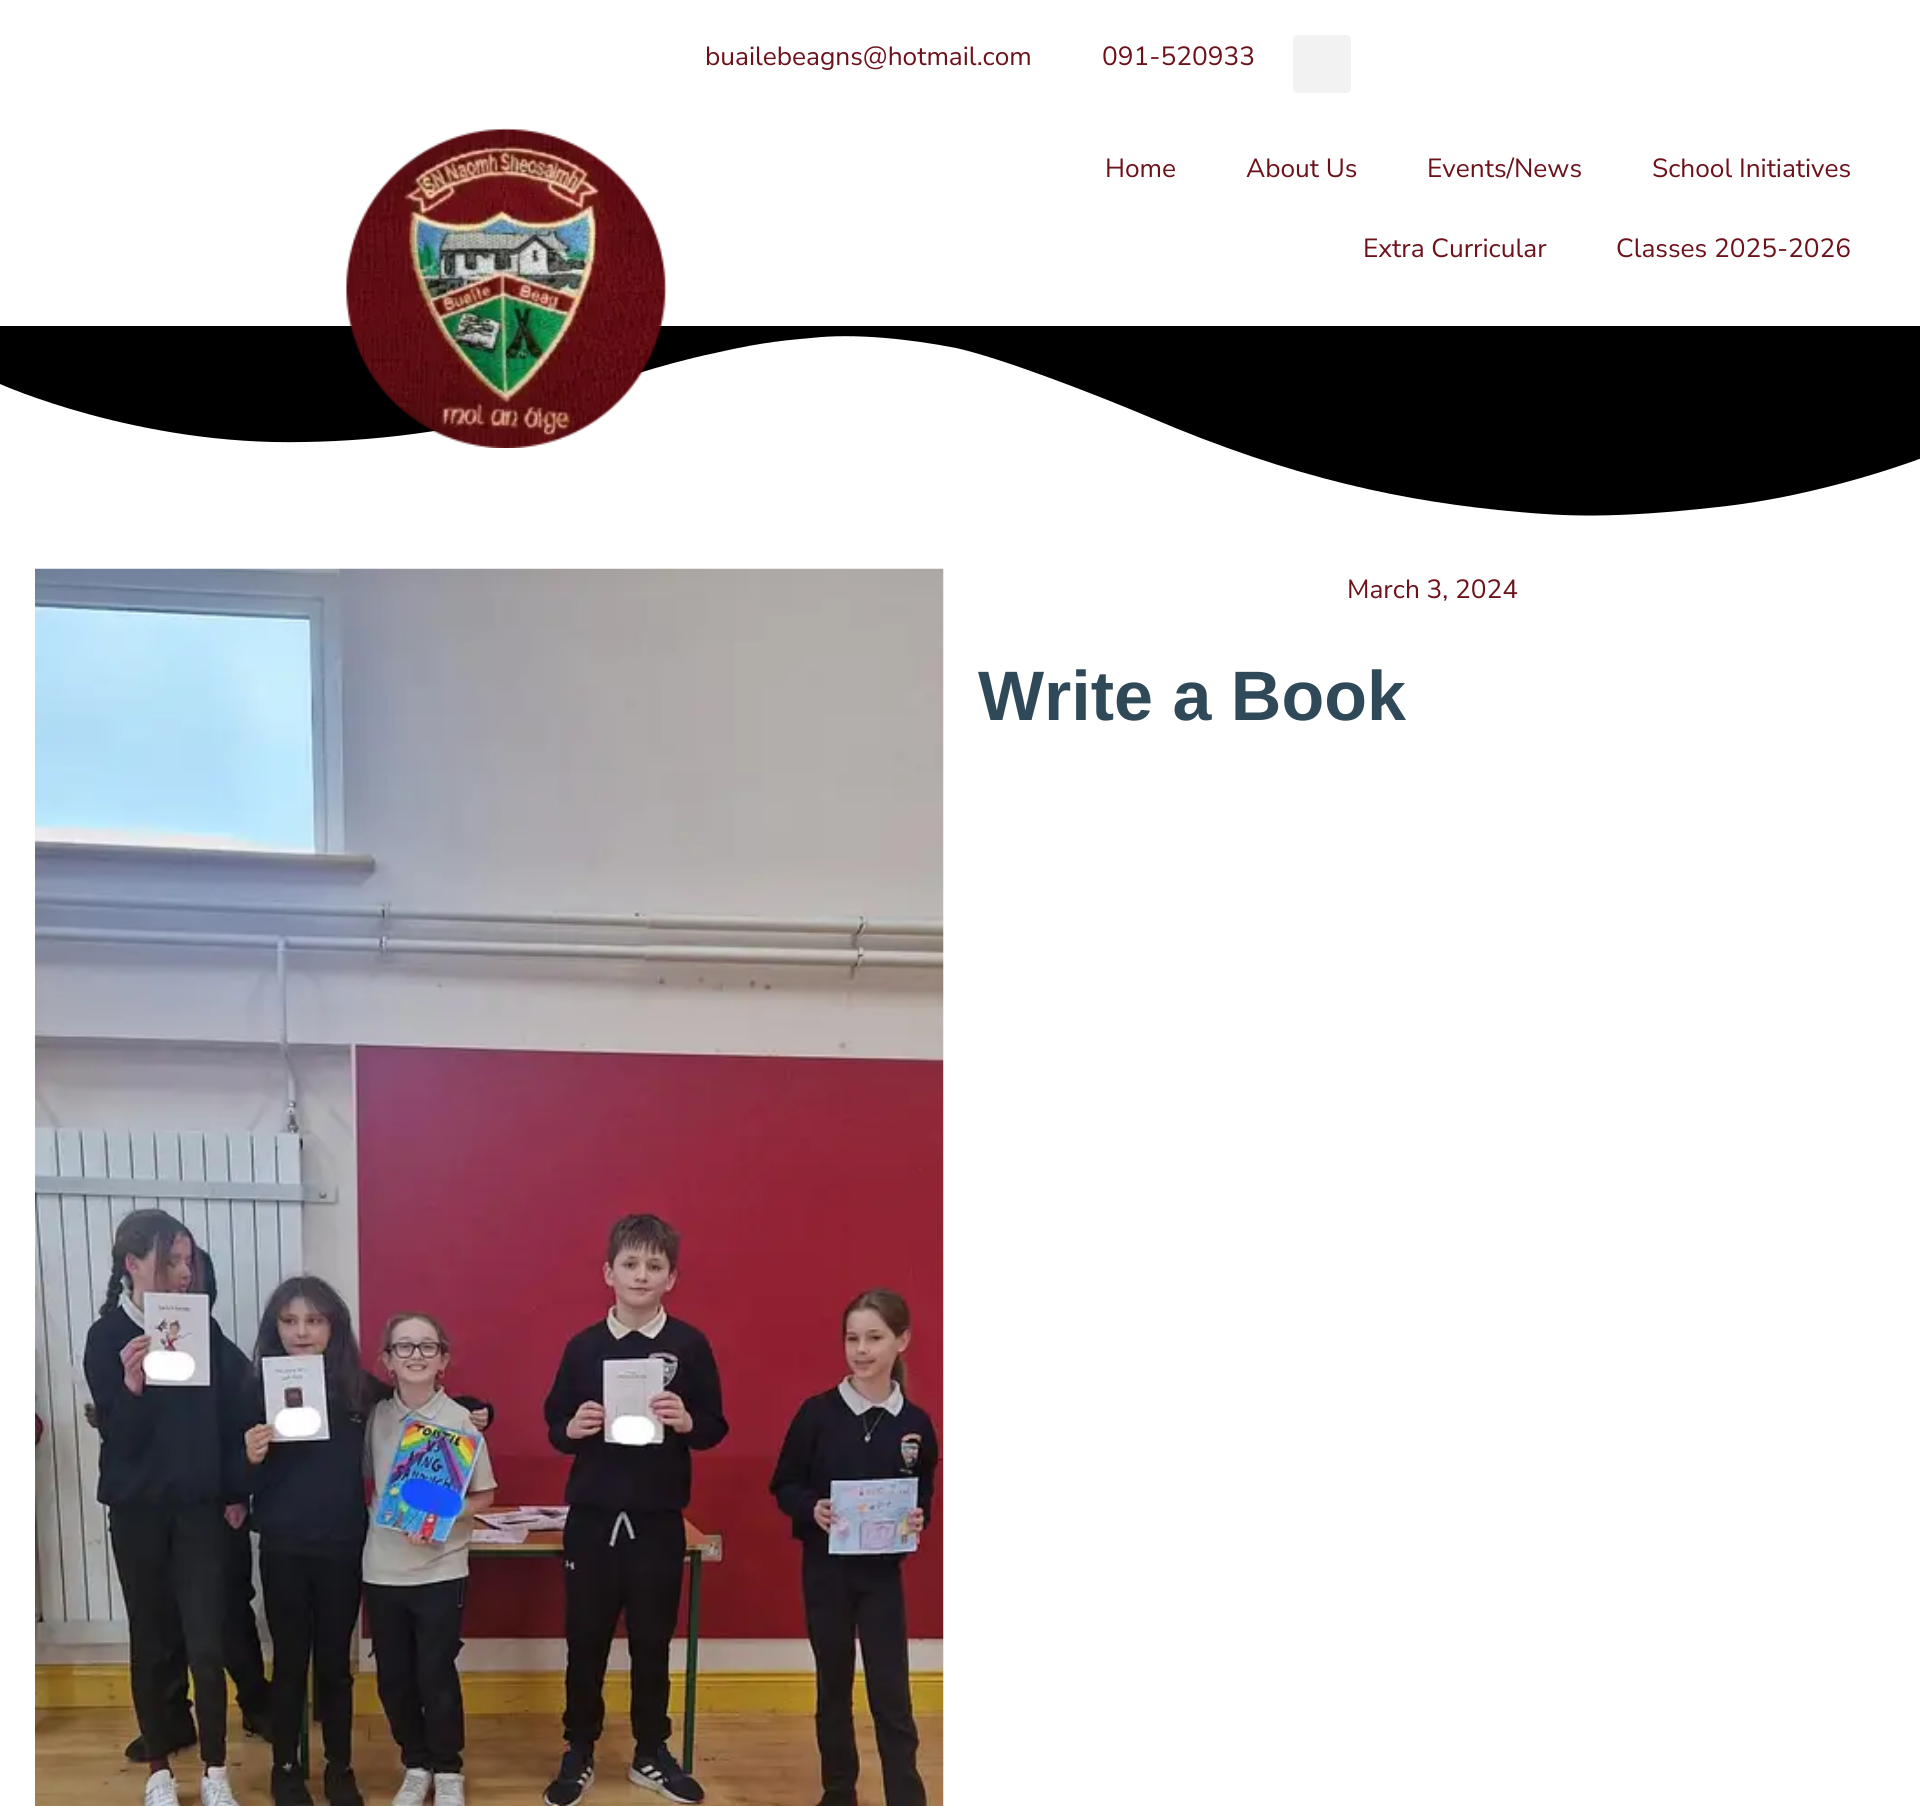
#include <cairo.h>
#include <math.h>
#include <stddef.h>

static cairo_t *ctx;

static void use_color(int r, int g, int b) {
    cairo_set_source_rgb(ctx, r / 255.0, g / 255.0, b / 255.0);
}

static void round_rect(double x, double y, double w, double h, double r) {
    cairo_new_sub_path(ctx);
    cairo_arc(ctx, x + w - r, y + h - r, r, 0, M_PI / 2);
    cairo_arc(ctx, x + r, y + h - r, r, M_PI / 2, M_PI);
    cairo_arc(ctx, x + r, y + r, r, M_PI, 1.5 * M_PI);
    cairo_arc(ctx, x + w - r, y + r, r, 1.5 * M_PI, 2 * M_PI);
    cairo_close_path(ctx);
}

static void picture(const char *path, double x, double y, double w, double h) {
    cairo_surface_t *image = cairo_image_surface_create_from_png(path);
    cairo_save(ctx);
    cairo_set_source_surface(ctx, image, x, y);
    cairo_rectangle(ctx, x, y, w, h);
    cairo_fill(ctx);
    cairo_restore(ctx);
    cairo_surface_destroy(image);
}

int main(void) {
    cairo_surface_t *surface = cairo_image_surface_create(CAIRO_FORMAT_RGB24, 1920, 1806);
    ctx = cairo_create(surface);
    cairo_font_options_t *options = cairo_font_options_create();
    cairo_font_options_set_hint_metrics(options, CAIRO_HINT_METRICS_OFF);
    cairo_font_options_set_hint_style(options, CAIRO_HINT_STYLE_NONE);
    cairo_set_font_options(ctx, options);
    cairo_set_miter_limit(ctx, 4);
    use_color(255, 255, 255);
    cairo_paint(ctx);
    cairo_select_font_face(ctx, "Nunito Sans", CAIRO_FONT_SLANT_NORMAL, CAIRO_FONT_WEIGHT_NORMAL);
    cairo_set_font_size(ctx, 26.25);
    use_color(109, 17, 26);
    cairo_move_to(ctx, 705, 65);
    cairo_show_text(ctx, "buailebeagns@hotmail.com");
    cairo_move_to(ctx, 1102, 65);
    cairo_show_text(ctx, "091-520933");
    use_color(242, 242, 242);
    round_rect(1293, 35, 58, 58, 5);
    cairo_fill(ctx);
    use_color(0, 0, 0);
    cairo_new_path(ctx);
    cairo_move_to(ctx, 811, 338);
    cairo_curve_to(ctx, 854, 333, 910, 339, 956, 348);
    cairo_curve_to(ctx, 1001, 358, 1092, 393, 1149, 417);
    cairo_curve_to(ctx, 1294, 479, 1406, 502, 1519, 512);
    cairo_curve_to(ctx, 1564, 516, 1612, 519, 1718, 507);
    cairo_curve_to(ctx, 1823, 496, 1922, 458, 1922, 458);
    cairo_line_to(ctx, 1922, 326);
    cairo_line_to(ctx, 0, 326);
    cairo_line_to(ctx, 0, 384);
    cairo_curve_to(ctx, 0, 384, 138, 446, 304, 442);
    cairo_curve_to(ctx, 380, 441, 483, 429, 562, 399);
    cairo_curve_to(ctx, 603, 384, 662, 364, 715, 353);
    cairo_curve_to(ctx, 767, 341, 791, 340, 811, 338);
    cairo_close_path(ctx);
    cairo_fill(ctx);
    picture("img1.png", 346, 128, 321, 320);
    use_color(109, 17, 26);
    cairo_move_to(ctx, 1105, 177);
    cairo_show_text(ctx, "Home");
    cairo_move_to(ctx, 1246, 177);
    cairo_show_text(ctx, "About Us");
    cairo_move_to(ctx, 1427, 177);
    cairo_show_text(ctx, "Events/News");
    cairo_move_to(ctx, 1652, 177);
    cairo_show_text(ctx, "School Initiatives");
    cairo_move_to(ctx, 1363, 257);
    cairo_show_text(ctx, "Extra Curricular");
    cairo_move_to(ctx, 1616, 257);
    cairo_show_text(ctx, "Classes 2025-2026");
    picture("img2.png", 35, 568, 909, 1238);
    cairo_move_to(ctx, 1347, 598);
    cairo_show_text(ctx, "March 3, 2024");
    cairo_select_font_face(ctx, "Liberation Sans", CAIRO_FONT_SLANT_NORMAL, CAIRO_FONT_WEIGHT_BOLD);
    cairo_set_font_size(ctx, 70);
    use_color(47, 73, 88);
    cairo_move_to(ctx, 978, 720);
    cairo_show_text(ctx, "Write a Book");
    cairo_surface_write_to_png(surface, "result.png");
    cairo_font_options_destroy(options);
    cairo_destroy(ctx);
    cairo_surface_destroy(surface);
    return 0;
}
